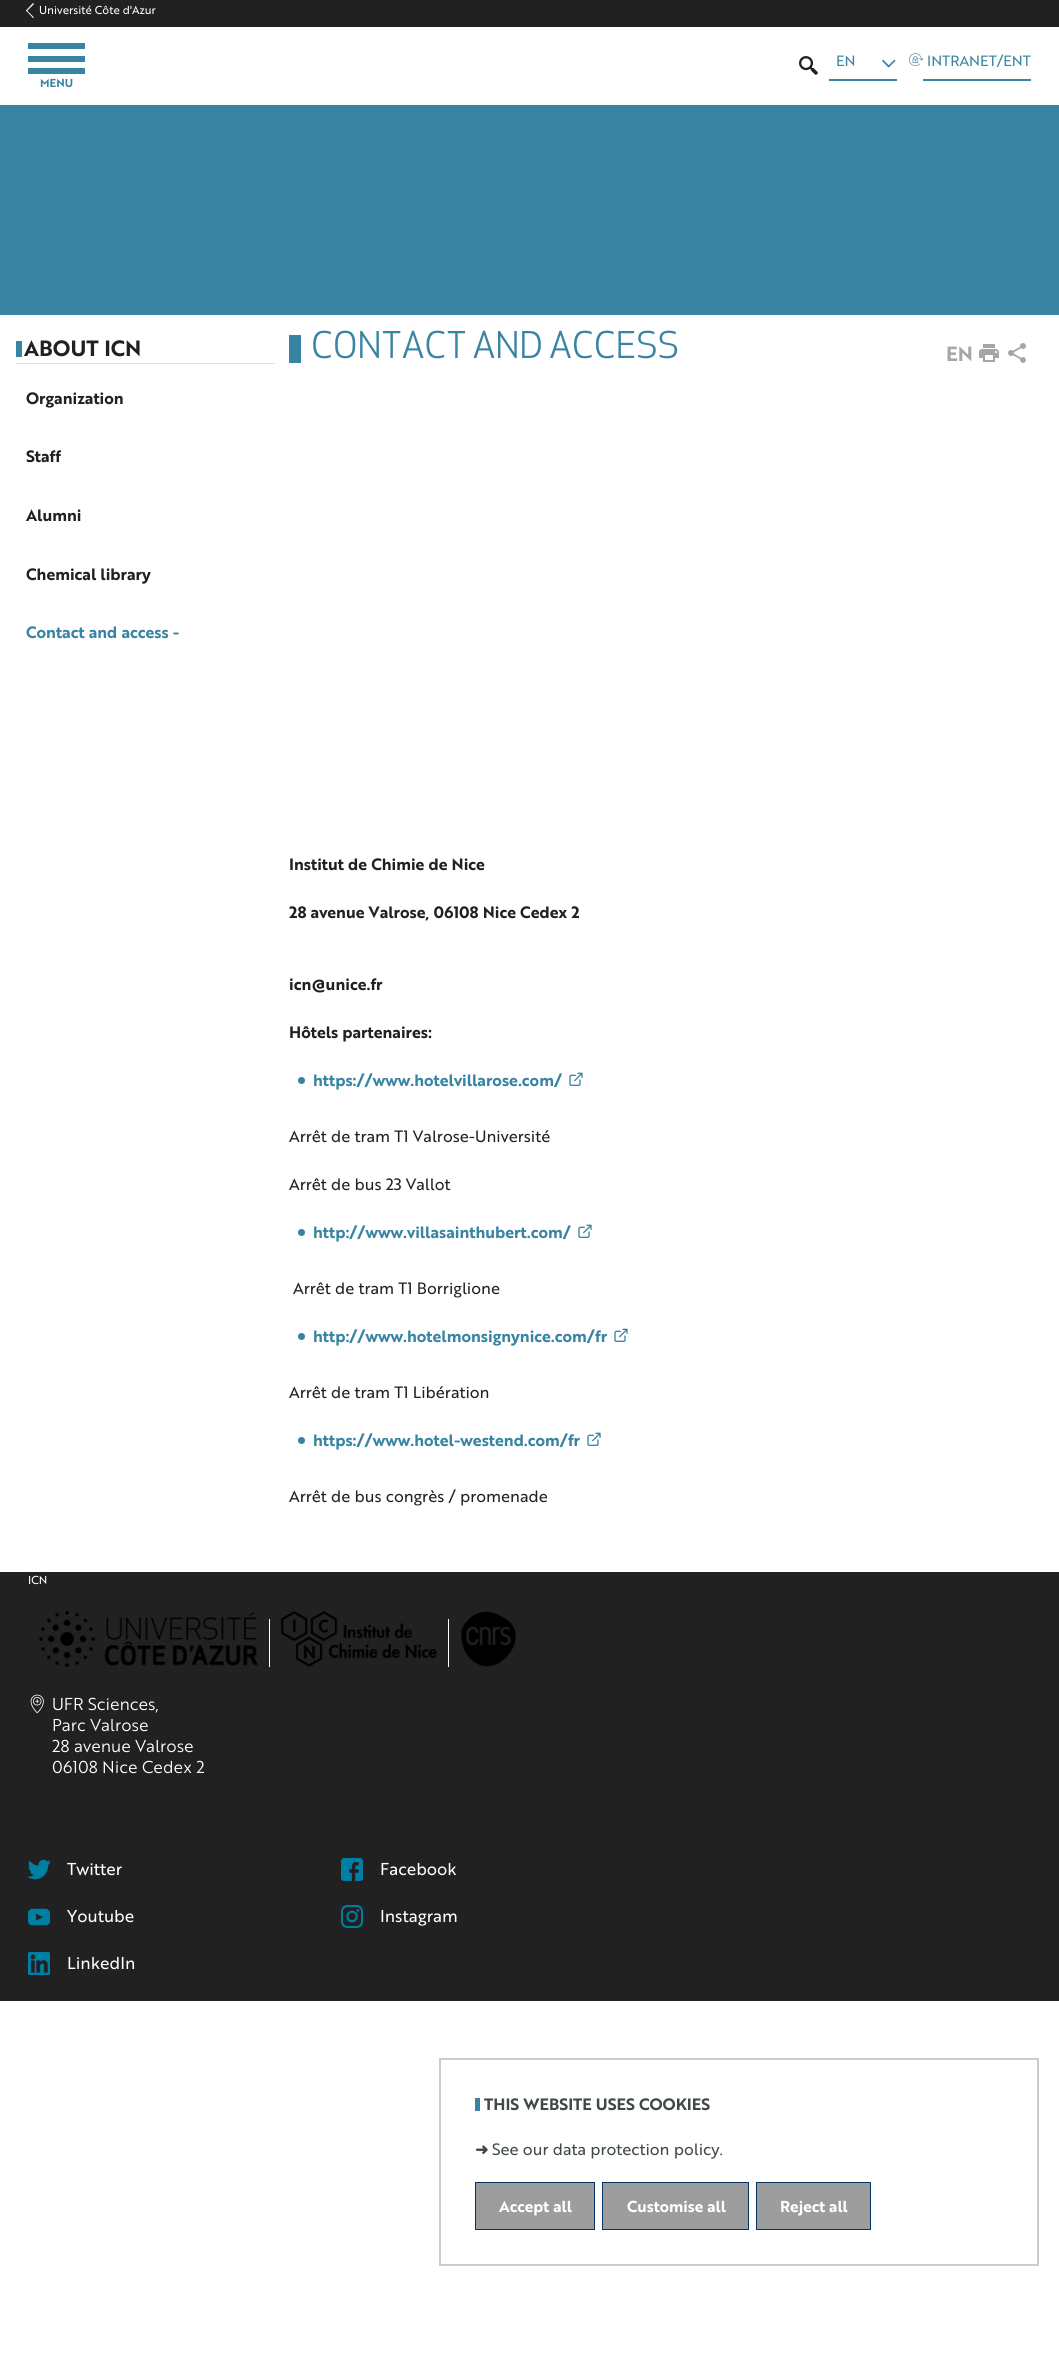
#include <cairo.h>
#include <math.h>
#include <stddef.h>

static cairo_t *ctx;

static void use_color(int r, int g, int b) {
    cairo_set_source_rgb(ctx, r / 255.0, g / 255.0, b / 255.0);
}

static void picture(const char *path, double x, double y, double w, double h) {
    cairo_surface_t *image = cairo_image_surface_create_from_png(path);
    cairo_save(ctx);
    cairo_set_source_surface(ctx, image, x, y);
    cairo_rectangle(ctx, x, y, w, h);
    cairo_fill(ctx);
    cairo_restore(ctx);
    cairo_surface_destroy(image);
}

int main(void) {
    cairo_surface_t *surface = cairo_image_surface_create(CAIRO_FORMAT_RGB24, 1059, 2360);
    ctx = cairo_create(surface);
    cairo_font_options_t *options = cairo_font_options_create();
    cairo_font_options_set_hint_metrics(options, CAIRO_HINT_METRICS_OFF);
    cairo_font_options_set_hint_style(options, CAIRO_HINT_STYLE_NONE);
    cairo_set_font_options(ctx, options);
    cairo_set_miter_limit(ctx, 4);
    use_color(255, 255, 255);
    cairo_paint(ctx);
    use_color(33, 33, 33);
    cairo_rectangle(ctx, 0, 0, 1059, 27);
    cairo_fill(ctx);
    use_color(255, 255, 255);
    cairo_new_path(ctx);
    cairo_move_to(ctx, 26.5, 10);
    cairo_line_to(ctx, 34, 17.5);
    cairo_line_to(ctx, 33, 18);
    cairo_line_to(ctx, 26, 10.5);
    cairo_close_path(ctx);
    cairo_fill(ctx);
    cairo_new_path(ctx);
    cairo_move_to(ctx, 33, 3);
    cairo_line_to(ctx, 34, 4);
    cairo_line_to(ctx, 26.5, 11.5);
    cairo_line_to(ctx, 26, 10.5);
    cairo_close_path(ctx);
    cairo_fill(ctx);
    cairo_select_font_face(ctx, "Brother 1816", CAIRO_FONT_SLANT_NORMAL, CAIRO_FONT_WEIGHT_NORMAL);
    cairo_set_font_size(ctx, 11.25);
    cairo_move_to(ctx, 39, 14);
    cairo_show_text(ctx, "Université Côte d'Azur");
    picture("img1.png", 799, 56, 19, 19);
    use_color(57, 132, 162);
    cairo_rectangle(ctx, 829, 79, 68, 2);
    cairo_fill(ctx);
    cairo_set_font_size(ctx, 14.5);
    cairo_move_to(ctx, 836, 66);
    cairo_show_text(ctx, "EN");
    cairo_new_path(ctx);
    cairo_move_to(ctx, 894.5, 59.5);
    cairo_line_to(ctx, 895.5, 61);
    cairo_line_to(ctx, 888.5, 67.5);
    cairo_line_to(ctx, 887.5, 66.5);
    cairo_close_path(ctx);
    cairo_fill(ctx);
    cairo_new_path(ctx);
    cairo_move_to(ctx, 883, 59.5);
    cairo_line_to(ctx, 890, 66.5);
    cairo_line_to(ctx, 888.5, 67.5);
    cairo_line_to(ctx, 882, 61);
    cairo_close_path(ctx);
    cairo_fill(ctx);
    picture("img2.png", 909, 53, 15, 13);
    cairo_rectangle(ctx, 923, 79, 108, 2);
    cairo_fill(ctx);
    cairo_move_to(ctx, 927, 66);
    cairo_show_text(ctx, "INTRANET/ENT");
    cairo_rectangle(ctx, 28, 43, 57, 6);
    cairo_fill(ctx);
    cairo_rectangle(ctx, 28, 68, 57, 6);
    cairo_fill(ctx);
    cairo_rectangle(ctx, 28, 56, 57, 6);
    cairo_fill(ctx);
    cairo_select_font_face(ctx, "Brother 1816", CAIRO_FONT_SLANT_NORMAL, CAIRO_FONT_WEIGHT_BOLD);
    cairo_set_font_size(ctx, 11.25);
    cairo_move_to(ctx, 40, 87);
    cairo_show_text(ctx, "MENU");
    cairo_rectangle(ctx, 0, 105, 1059, 210);
    cairo_fill(ctx);
    use_color(224, 224, 224);
    cairo_rectangle(ctx, 16, 363, 259, 1);
    cairo_fill(ctx);
    use_color(57, 132, 162);
    cairo_rectangle(ctx, 16, 341, 6, 16);
    cairo_fill(ctx);
    cairo_set_font_size(ctx, 21.5);
    use_color(33, 33, 33);
    cairo_move_to(ctx, 24, 356);
    cairo_show_text(ctx, "ABOUT ICN");
    cairo_set_font_size(ctx, 16);
    cairo_move_to(ctx, 26, 404);
    cairo_show_text(ctx, "Organization");
    cairo_move_to(ctx, 26, 462);
    cairo_show_text(ctx, "Staff");
    cairo_move_to(ctx, 26, 521);
    cairo_show_text(ctx, "Alumni");
    cairo_move_to(ctx, 26, 580);
    cairo_show_text(ctx, "Chemical library");
    use_color(57, 132, 162);
    cairo_move_to(ctx, 26, 638);
    cairo_show_text(ctx, "Contact and access -");
    cairo_rectangle(ctx, 289, 335, 12, 28);
    cairo_fill(ctx);
    picture("img3.png", 313, 330, 365, 29);
    cairo_set_font_size(ctx, 20);
    use_color(166, 166, 166);
    cairo_move_to(ctx, 946, 361);
    cairo_show_text(ctx, "EN");
    picture("img4.png", 979, 344, 20, 18);
    picture("img5.png", 1008, 343, 18, 20);
    cairo_set_font_size(ctx, 16);
    use_color(33, 33, 33);
    cairo_move_to(ctx, 289, 870);
    cairo_show_text(ctx, "Institut de Chimie de Nice");
    cairo_move_to(ctx, 289, 918);
    cairo_show_text(ctx, "28 avenue Valrose, 06108 Nice Cedex 2");
    cairo_move_to(ctx, 289, 990);
    cairo_show_text(ctx, "icn@unice.fr");
    cairo_move_to(ctx, 289, 1038);
    cairo_show_text(ctx, "Hôtels partenaires:");
    use_color(57, 132, 162);
    cairo_new_path(ctx);
    cairo_arc(ctx, 301.5, 1080.5, 3.5, 0, 2 * M_PI);
    cairo_fill(ctx);
    cairo_move_to(ctx, 313, 1086);
    cairo_show_text(ctx, "https://www.hotelvillarose.com/");
    picture("img6.png", 569, 1072, 14, 14);
    cairo_select_font_face(ctx, "Brother 1816", CAIRO_FONT_SLANT_NORMAL, CAIRO_FONT_WEIGHT_NORMAL);
    use_color(33, 33, 33);
    cairo_move_to(ctx, 289, 1142);
    cairo_show_text(ctx, "Arrêt de tram T1 Valrose-Université");
    cairo_move_to(ctx, 289, 1190);
    cairo_show_text(ctx, "Arrêt de bus 23 Vallot");
    use_color(57, 132, 162);
    cairo_new_path(ctx);
    cairo_arc(ctx, 301.5, 1232.5, 3.5, 0, 2 * M_PI);
    cairo_fill(ctx);
    cairo_select_font_face(ctx, "Brother 1816", CAIRO_FONT_SLANT_NORMAL, CAIRO_FONT_WEIGHT_BOLD);
    cairo_move_to(ctx, 313, 1238);
    cairo_show_text(ctx, "http://www.villasainthubert.com/");
    picture("img6.png", 578, 1224, 14, 14);
    cairo_select_font_face(ctx, "Brother 1816", CAIRO_FONT_SLANT_NORMAL, CAIRO_FONT_WEIGHT_NORMAL);
    use_color(33, 33, 33);
    cairo_move_to(ctx, 293, 1294);
    cairo_show_text(ctx, "Arrêt de tram T1 Borriglione");
    use_color(57, 132, 162);
    cairo_new_path(ctx);
    cairo_arc(ctx, 301.5, 1336.5, 3.5, 0, 2 * M_PI);
    cairo_fill(ctx);
    cairo_select_font_face(ctx, "Brother 1816", CAIRO_FONT_SLANT_NORMAL, CAIRO_FONT_WEIGHT_BOLD);
    cairo_move_to(ctx, 313, 1342);
    cairo_show_text(ctx, "http://www.hotelmonsignynice.com/fr");
    picture("img6.png", 614, 1328, 14, 14);
    cairo_select_font_face(ctx, "Brother 1816", CAIRO_FONT_SLANT_NORMAL, CAIRO_FONT_WEIGHT_NORMAL);
    use_color(33, 33, 33);
    cairo_move_to(ctx, 289, 1398);
    cairo_show_text(ctx, "Arrêt de tram T1 Libération");
    use_color(57, 132, 162);
    cairo_new_path(ctx);
    cairo_arc(ctx, 301.5, 1440.5, 3.5, 0, 2 * M_PI);
    cairo_fill(ctx);
    cairo_select_font_face(ctx, "Brother 1816", CAIRO_FONT_SLANT_NORMAL, CAIRO_FONT_WEIGHT_BOLD);
    cairo_move_to(ctx, 313, 1446);
    cairo_show_text(ctx, "https://www.hotel-westend.com/fr");
    picture("img6.png", 587, 1432, 14, 14);
    cairo_select_font_face(ctx, "Brother 1816", CAIRO_FONT_SLANT_NORMAL, CAIRO_FONT_WEIGHT_NORMAL);
    use_color(33, 33, 33);
    cairo_move_to(ctx, 289, 1502);
    cairo_show_text(ctx, "Arrêt de bus congrès / promenade");
    cairo_rectangle(ctx, 0, 1572, 1059, 429);
    cairo_fill(ctx);
    cairo_set_font_size(ctx, 11.25);
    use_color(255, 255, 255);
    cairo_move_to(ctx, 28, 1584);
    cairo_show_text(ctx, "ICN");
    picture("img7.png", 39, 1611, 219, 56);
    cairo_rectangle(ctx, 269, 1619, 1, 48);
    cairo_fill(ctx);
    picture("img8.png", 281, 1611, 156, 56);
    cairo_rectangle(ctx, 448, 1619, 1, 48);
    cairo_fill(ctx);
    picture("img9.png", 461, 1611, 55, 56);
    picture("img10.png", 30, 1694, 14, 20);
    cairo_select_font_face(ctx, "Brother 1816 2", CAIRO_FONT_SLANT_NORMAL, CAIRO_FONT_WEIGHT_NORMAL);
    cairo_set_font_size(ctx, 16.75);
    cairo_move_to(ctx, 52, 1710);
    cairo_show_text(ctx, "UFR Sciences,");
    cairo_move_to(ctx, 52, 1731);
    cairo_show_text(ctx, "Parc Valrose");
    cairo_move_to(ctx, 52, 1752);
    cairo_show_text(ctx, "28 avenue Valrose");
    cairo_move_to(ctx, 52, 1773);
    cairo_show_text(ctx, "06108 Nice Cedex 2");
    picture("img11.png", 28, 1859, 22, 21);
    cairo_select_font_face(ctx, "Brother 1816", CAIRO_FONT_SLANT_NORMAL, CAIRO_FONT_WEIGHT_NORMAL);
    cairo_move_to(ctx, 67, 1875);
    cairo_show_text(ctx, "Twitter");
    picture("img12.png", 341, 1858, 22, 23);
    cairo_move_to(ctx, 380, 1875);
    cairo_show_text(ctx, "Facebook");
    picture("img13.png", 28, 1908, 22, 18);
    cairo_move_to(ctx, 67, 1922);
    cairo_show_text(ctx, "Youtube");
    picture("img14.png", 341, 1905, 22, 23);
    cairo_move_to(ctx, 380, 1922);
    cairo_show_text(ctx, "Instagram");
    picture("img15.png", 28, 1952, 22, 23);
    cairo_move_to(ctx, 67, 1969);
    cairo_show_text(ctx, "LinkedIn");
    cairo_rectangle(ctx, 440, 2059, 598, 206);
    use_color(204, 204, 204);
    cairo_stroke(ctx);
    use_color(57, 132, 162);
    cairo_rectangle(ctx, 475, 2098, 5, 13);
    cairo_fill(ctx);
    cairo_select_font_face(ctx, "Brother 1816", CAIRO_FONT_SLANT_NORMAL, CAIRO_FONT_WEIGHT_BOLD);
    cairo_set_font_size(ctx, 16);
    use_color(64, 72, 73);
    cairo_move_to(ctx, 484, 2110);
    cairo_show_text(ctx, "THIS WEBSITE USES COOKIES");
    cairo_select_font_face(ctx, "DejaVu Sans", CAIRO_FONT_SLANT_NORMAL, CAIRO_FONT_WEIGHT_BOLD);
    cairo_move_to(ctx, 475, 2155);
    cairo_show_text(ctx, "➜");
    cairo_select_font_face(ctx, "Brother 1816", CAIRO_FONT_SLANT_NORMAL, CAIRO_FONT_WEIGHT_NORMAL);
    cairo_move_to(ctx, 492, 2155);
    cairo_show_text(ctx, "See our data protection policy.");
    use_color(158, 157, 157);
    cairo_rectangle(ctx, 475.5, 2182.5, 119, 47);
    cairo_fill_preserve(ctx);
    use_color(5, 52, 97);
    cairo_set_line_width(ctx, 1);
    cairo_stroke(ctx);
    cairo_select_font_face(ctx, "Brother 1816", CAIRO_FONT_SLANT_NORMAL, CAIRO_FONT_WEIGHT_BOLD);
    cairo_set_font_size(ctx, 15.5);
    use_color(255, 255, 255);
    cairo_move_to(ctx, 499, 2212);
    cairo_show_text(ctx, "Accept all");
    use_color(158, 157, 157);
    cairo_rectangle(ctx, 602.5, 2182.5, 146, 47);
    cairo_fill_preserve(ctx);
    use_color(5, 52, 97);
    cairo_stroke(ctx);
    use_color(255, 255, 255);
    cairo_move_to(ctx, 627, 2212);
    cairo_show_text(ctx, "Customise all");
    use_color(158, 157, 157);
    cairo_rectangle(ctx, 756.5, 2182.5, 114, 47);
    cairo_fill_preserve(ctx);
    use_color(5, 52, 97);
    cairo_stroke(ctx);
    use_color(255, 255, 255);
    cairo_move_to(ctx, 780, 2212);
    cairo_show_text(ctx, "Reject all");
    cairo_surface_write_to_png(surface, "result.png");
    cairo_font_options_destroy(options);
    cairo_destroy(ctx);
    cairo_surface_destroy(surface);
    return 0;
}
